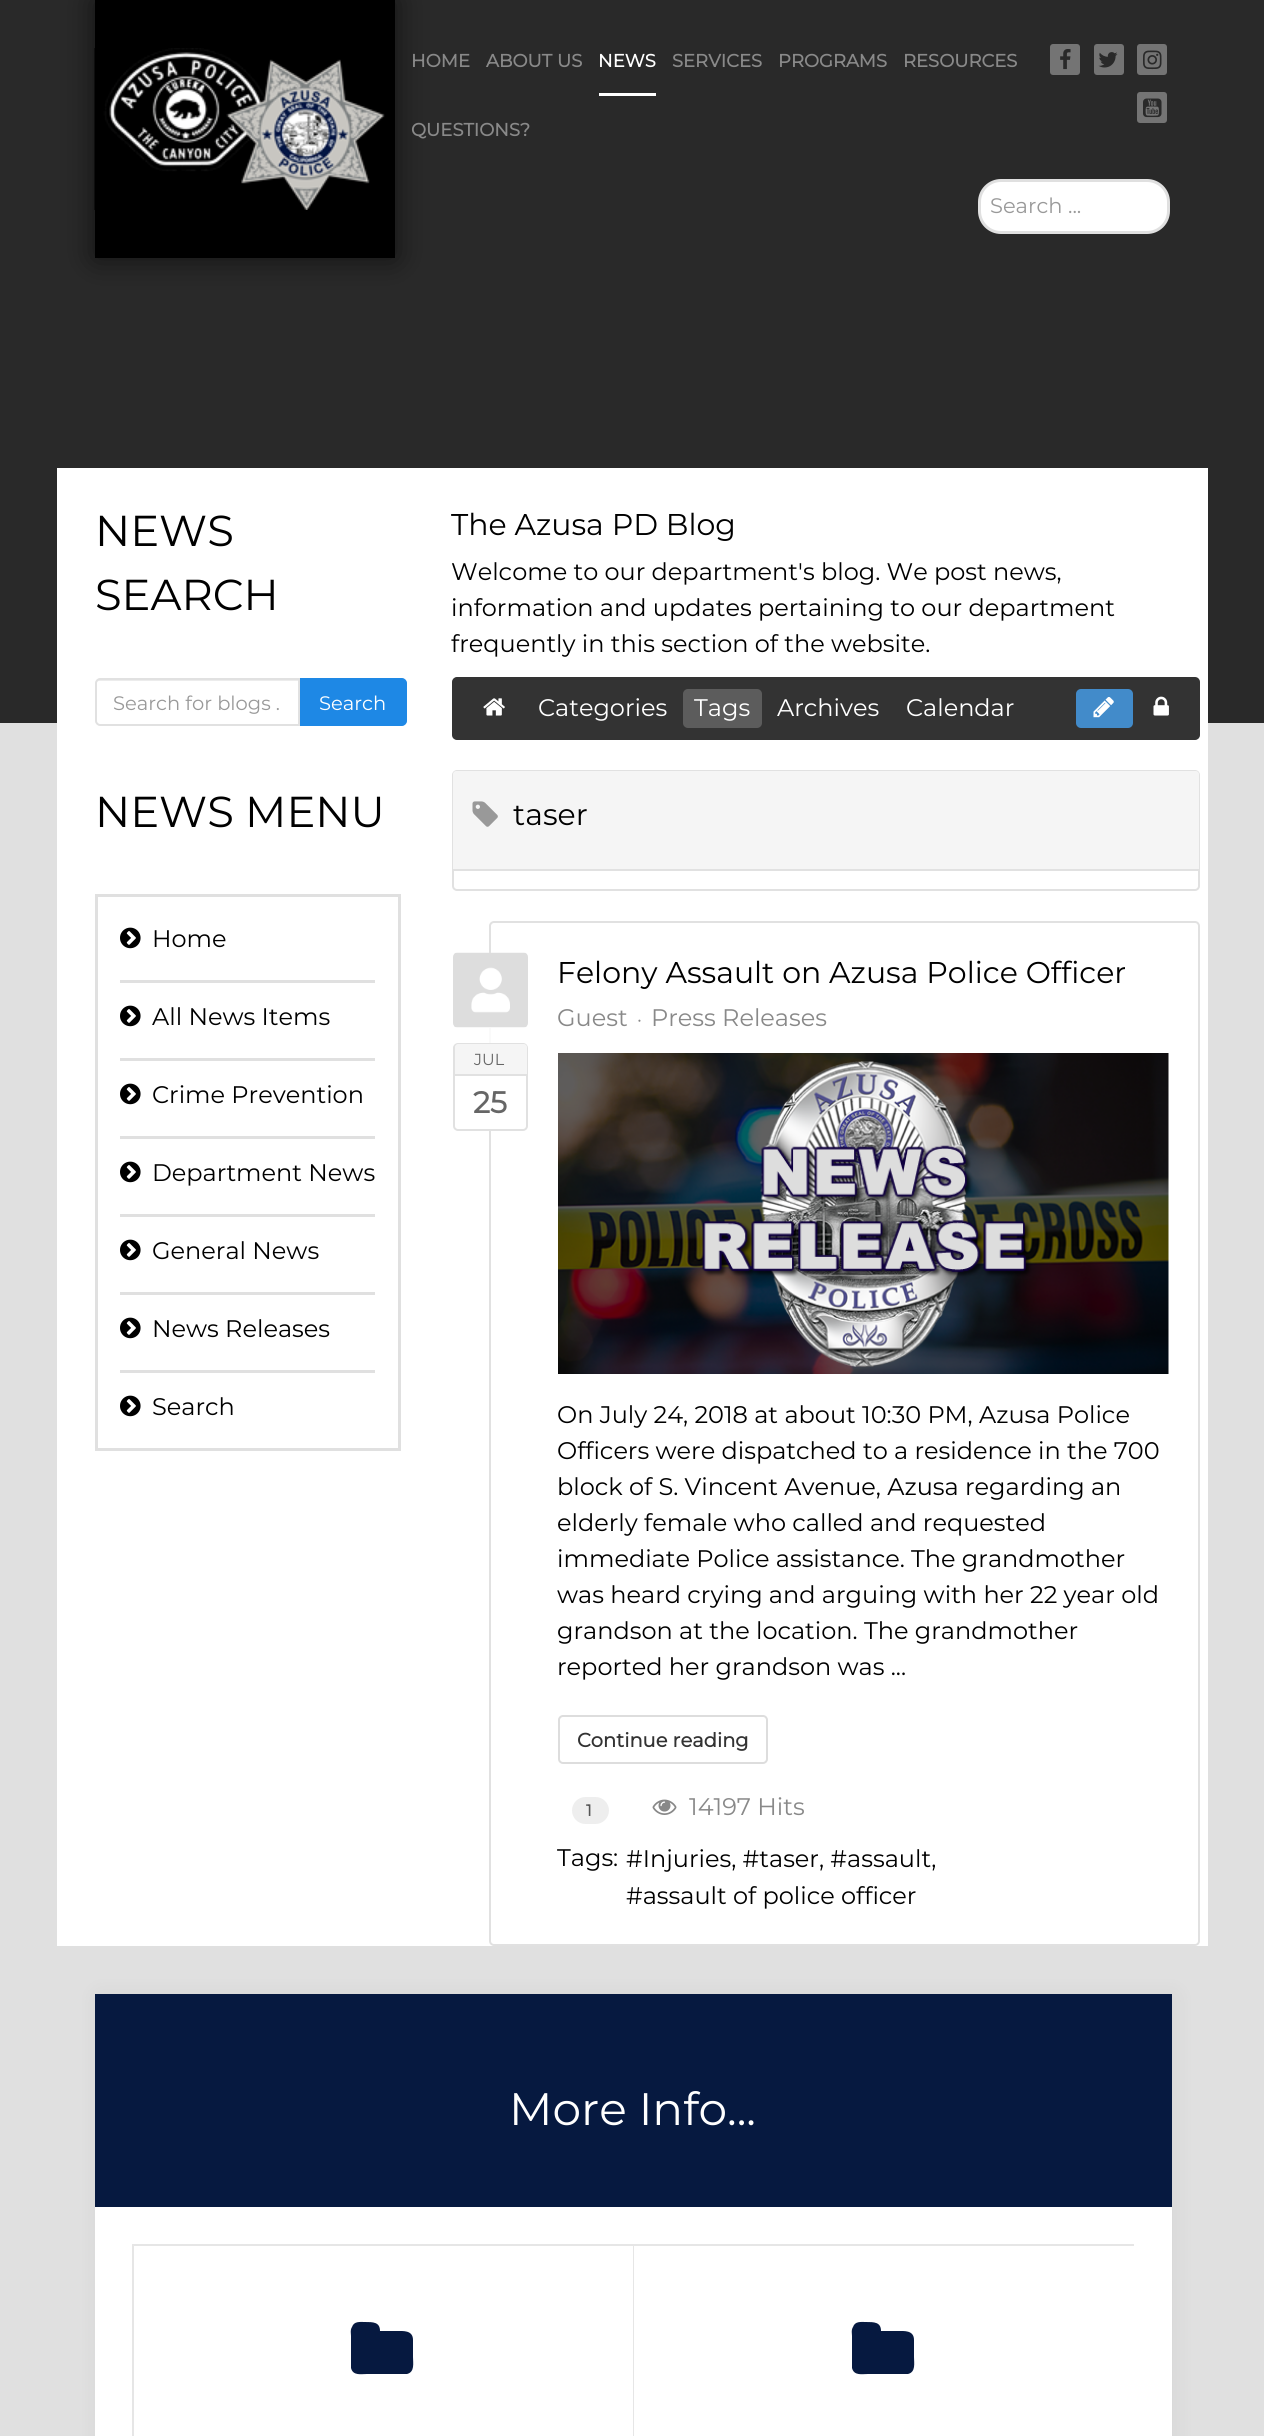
#include <cairo.h>
#include <math.h>
#include <stddef.h>

static cairo_t *ctx;

static void use_color(int r, int g, int b) {
    cairo_set_source_rgb(ctx, r / 255.0, g / 255.0, b / 255.0);
}

static void round_rect(double x, double y, double w, double h, double r) {
    cairo_new_sub_path(ctx);
    cairo_arc(ctx, x + w - r, y + h - r, r, 0, M_PI / 2);
    cairo_arc(ctx, x + r, y + h - r, r, M_PI / 2, M_PI);
    cairo_arc(ctx, x + r, y + r, r, M_PI, 1.5 * M_PI);
    cairo_arc(ctx, x + w - r, y + r, r, 1.5 * M_PI, 2 * M_PI);
    cairo_close_path(ctx);
}

static void shadow(double x, double y, double w, double h, double r, double blur, double alpha) {
    cairo_push_group_with_content(ctx, CAIRO_CONTENT_ALPHA);
    cairo_set_operator(ctx, CAIRO_OPERATOR_SOURCE);
    for (int i = 15; i >= -15 && fmin(w, h) + blur * i / 3 > 0; i -= 2) {
        double e = blur * i / 6;
        cairo_set_source_rgba(ctx, 0, 0, 0, alpha * erfc((i - 1) / 8.5) / 2);
        round_rect(x - e, y - e, w + 2 * e, h + 2 * e, fmax(0, fmin(r + e + blur * .6, fmin(w, h) / 2 + e)));
        cairo_fill(ctx);
    }
    cairo_pattern_t *soft = cairo_pop_group(ctx);
    cairo_mask(ctx, soft);
    cairo_pattern_destroy(soft);
}

static void picture(const char *path, double x, double y, double w, double h) {
    cairo_surface_t *image = cairo_image_surface_create_from_png(path);
    cairo_save(ctx);
    cairo_set_source_surface(ctx, image, x, y);
    cairo_rectangle(ctx, x, y, w, h);
    cairo_fill(ctx);
    cairo_restore(ctx);
    cairo_surface_destroy(image);
}

int main(void) {
    cairo_surface_t *surface = cairo_image_surface_create(CAIRO_FORMAT_RGB24, 1264, 2436);
    ctx = cairo_create(surface);
    cairo_font_options_t *options = cairo_font_options_create();
    cairo_font_options_set_hint_metrics(options, CAIRO_HINT_METRICS_OFF);
    cairo_font_options_set_hint_style(options, CAIRO_HINT_STYLE_NONE);
    cairo_set_font_options(ctx, options);
    cairo_set_miter_limit(ctx, 4);
    use_color(224, 224, 224);
    cairo_paint(ctx);
    use_color(41, 41, 41);
    cairo_rectangle(ctx, 0, 0, 1264, 723);
    cairo_fill(ctx);
    use_color(0, 0, 0);
    shadow(95, 0, 300, 258, 0, 15, 0.6);
    use_color(0, 0, 0);
    cairo_rectangle(ctx, 95, 0, 300, 258);
    cairo_fill(ctx);
    picture("img1.png", 94, 48, 291, 162);
    cairo_select_font_face(ctx, "Montserrat", CAIRO_FONT_SLANT_NORMAL, CAIRO_FONT_WEIGHT_BOLD);
    cairo_set_font_size(ctx, 18);
    use_color(137, 137, 137);
    cairo_move_to(ctx, 411, 67);
    cairo_show_text(ctx, "HOME");
    cairo_move_to(ctx, 486, 67);
    cairo_show_text(ctx, "ABOUT US");
    use_color(255, 255, 255);
    cairo_move_to(ctx, 598, 67);
    cairo_show_text(ctx, "NEWS");
    cairo_rectangle(ctx, 599, 93, 57, 3);
    cairo_fill(ctx);
    use_color(137, 137, 137);
    cairo_move_to(ctx, 672, 67);
    cairo_show_text(ctx, "SERVICES");
    cairo_move_to(ctx, 778, 67);
    cairo_show_text(ctx, "PROGRAMS");
    cairo_move_to(ctx, 903, 67);
    cairo_show_text(ctx, "RESOURCES");
    cairo_move_to(ctx, 411, 136);
    cairo_show_text(ctx, "QUESTIONS?");
    use_color(116, 116, 116);
    round_rect(1050, 44, 30, 31, 3);
    cairo_fill(ctx);
    picture("img2.png", 1060, 49, 11, 21);
    round_rect(1094, 44, 30, 31, 3);
    cairo_fill(ctx);
    picture("img3.png", 1098, 52, 20, 16);
    round_rect(1137, 44, 30, 31, 3);
    cairo_fill(ctx);
    picture("img4.png", 1143, 50, 19, 20);
    round_rect(1137, 92, 30, 31, 3);
    cairo_fill(ctx);
    picture("img5.png", 1143, 98, 19, 20);
    use_color(255, 255, 255);
    round_rect(979.5, 180.5, 189, 52, 21.5);
    cairo_fill_preserve(ctx);
    use_color(224, 224, 224);
    cairo_set_line_width(ctx, 3);
    cairo_stroke(ctx);
    cairo_select_font_face(ctx, "Montserrat Thin", CAIRO_FONT_SLANT_NORMAL, CAIRO_FONT_WEIGHT_NORMAL);
    cairo_set_font_size(ctx, 21);
    use_color(153, 153, 153);
    cairo_move_to(ctx, 990, 213);
    cairo_show_text(ctx, "Search ...");
    use_color(255, 255, 255);
    cairo_rectangle(ctx, 57, 468, 1151, 1478);
    cairo_fill(ctx);
    cairo_set_font_size(ctx, 43.25);
    use_color(0, 0, 0);
    cairo_move_to(ctx, 95, 546);
    cairo_show_text(ctx, "NEWS");
    cairo_move_to(ctx, 95, 610);
    cairo_show_text(ctx, "SEARCH");
    use_color(236, 236, 236);
    cairo_new_path(ctx);
    cairo_move_to(ctx, 99, 681);
    cairo_line_to(ctx, 298, 681);
    cairo_line_to(ctx, 298, 725);
    cairo_line_to(ctx, 299, 725);
    cairo_line_to(ctx, 299, 680);
    cairo_line_to(ctx, 98, 680);
    cairo_curve_to(ctx, 96, 681, 96, 682, 96, 684);
    cairo_curve_to(ctx, 96, 682, 97, 681, 99, 681);
    cairo_close_path(ctx);
    cairo_fill(ctx);
    cairo_new_path(ctx);
    cairo_move_to(ctx, 100, 679);
    cairo_line_to(ctx, 299, 679);
    cairo_line_to(ctx, 299, 725);
    cairo_line_to(ctx, 100, 725);
    cairo_curve_to(ctx, 98, 725, 96, 723, 96, 721);
    cairo_line_to(ctx, 96, 683);
    cairo_curve_to(ctx, 96, 681, 98, 679, 100, 679);
    cairo_close_path(ctx);
    use_color(225, 225, 225);
    cairo_set_line_width(ctx, 2);
    cairo_stroke(ctx);
    cairo_set_font_size(ctx, 19.5);
    use_color(153, 153, 153);
    cairo_move_to(ctx, 113, 710);
    cairo_show_text(ctx, "Search for blogs .");
    use_color(30, 136, 229);
    cairo_new_path(ctx);
    cairo_move_to(ctx, 301, 679);
    cairo_line_to(ctx, 402, 679);
    cairo_curve_to(ctx, 404, 679, 406, 681, 406, 683);
    cairo_line_to(ctx, 406, 721);
    cairo_curve_to(ctx, 406, 723, 404, 725, 402, 725);
    cairo_line_to(ctx, 301, 725);
    cairo_close_path(ctx);
    cairo_fill_preserve(ctx);
    cairo_stroke(ctx);
    use_color(255, 255, 255);
    cairo_move_to(ctx, 319, 710);
    cairo_show_text(ctx, "Search");
    cairo_set_font_size(ctx, 43.25);
    use_color(0, 0, 0);
    cairo_move_to(ctx, 95, 827);
    cairo_show_text(ctx, "NEWS MENU");
    cairo_rectangle(ctx, 96.5, 895.5, 303, 554);
    use_color(224, 224, 224);
    cairo_set_line_width(ctx, 3);
    cairo_stroke(ctx);
    cairo_rectangle(ctx, 120, 980, 255, 3);
    cairo_fill(ctx);
    picture("img6.png", 120, 927, 21, 22);
    cairo_set_font_size(ctx, 24);
    use_color(0, 0, 0);
    cairo_move_to(ctx, 152, 947);
    cairo_show_text(ctx, "Home");
    use_color(224, 224, 224);
    cairo_rectangle(ctx, 120, 1058, 255, 3);
    cairo_fill(ctx);
    picture("img6.png", 120, 1005, 21, 22);
    use_color(0, 0, 0);
    cairo_move_to(ctx, 152, 1025);
    cairo_show_text(ctx, "All News Items");
    use_color(224, 224, 224);
    cairo_rectangle(ctx, 120, 1136, 255, 3);
    cairo_fill(ctx);
    picture("img6.png", 120, 1083, 21, 22);
    use_color(0, 0, 0);
    cairo_move_to(ctx, 152, 1103);
    cairo_show_text(ctx, "Crime Prevention");
    use_color(224, 224, 224);
    cairo_rectangle(ctx, 120, 1214, 255, 3);
    cairo_fill(ctx);
    picture("img6.png", 120, 1161, 21, 22);
    use_color(0, 0, 0);
    cairo_move_to(ctx, 152, 1181);
    cairo_show_text(ctx, "Department News");
    use_color(224, 224, 224);
    cairo_rectangle(ctx, 120, 1292, 255, 3);
    cairo_fill(ctx);
    picture("img6.png", 120, 1239, 21, 22);
    use_color(0, 0, 0);
    cairo_move_to(ctx, 152, 1259);
    cairo_show_text(ctx, "General News");
    use_color(224, 224, 224);
    cairo_rectangle(ctx, 120, 1370, 255, 3);
    cairo_fill(ctx);
    picture("img6.png", 120, 1317, 21, 22);
    use_color(0, 0, 0);
    cairo_move_to(ctx, 152, 1337);
    cairo_show_text(ctx, "News Releases");
    picture("img6.png", 120, 1395, 21, 22);
    cairo_move_to(ctx, 152, 1415);
    cairo_show_text(ctx, "Search");
    cairo_set_font_size(ctx, 30);
    cairo_move_to(ctx, 451, 535);
    cairo_show_text(ctx, "The Azusa PD Blog");
    cairo_set_font_size(ctx, 24);
    cairo_move_to(ctx, 451, 580);
    cairo_show_text(ctx, "Welcome to our department's blog. We post news,");
    cairo_move_to(ctx, 451, 616);
    cairo_show_text(ctx, "information and updates pertaining to our department");
    cairo_move_to(ctx, 451, 652);
    cairo_show_text(ctx, "frequently in this section of the website.");
    use_color(51, 51, 51);
    round_rect(453, 678, 746, 61, 4);
    cairo_fill_preserve(ctx);
    cairo_set_line_width(ctx, 2);
    cairo_stroke(ctx);
    picture("img7.png", 483, 698, 22, 18);
    use_color(255, 255, 255);
    cairo_move_to(ctx, 538, 716);
    cairo_show_text(ctx, "Categories");
    use_color(92, 92, 92);
    round_rect(683, 689, 79, 39, 5);
    cairo_fill(ctx);
    use_color(255, 255, 255);
    cairo_move_to(ctx, 694, 716);
    cairo_show_text(ctx, "Tags");
    cairo_move_to(ctx, 777, 716);
    cairo_show_text(ctx, "Archives");
    cairo_move_to(ctx, 906, 716);
    cairo_show_text(ctx, "Calendar");
    use_color(66, 139, 202);
    round_rect(1076, 689, 57, 39, 5);
    cairo_fill(ctx);
    picture("img8.png", 1093, 697, 21, 21);
    picture("img9.png", 1153, 696, 16, 20);
    round_rect(453, 771, 746, 119, 4);
    use_color(225, 225, 225);
    cairo_stroke(ctx);
    use_color(245, 245, 245);
    cairo_new_path(ctx);
    cairo_move_to(ctx, 456, 771);
    cairo_line_to(ctx, 1196, 771);
    cairo_curve_to(ctx, 1197.5, 771, 1199, 772.5, 1199, 774);
    cairo_line_to(ctx, 1199, 870);
    cairo_line_to(ctx, 453, 870);
    cairo_line_to(ctx, 453, 774);
    cairo_curve_to(ctx, 453, 772.5, 454.5, 771, 456, 771);
    cairo_close_path(ctx);
    cairo_fill(ctx);
    use_color(225, 225, 225);
    cairo_rectangle(ctx, 453, 869, 746, 2);
    cairo_fill(ctx);
    picture("img10.png", 472, 801, 26, 26);
    cairo_set_font_size(ctx, 30);
    use_color(0, 0, 0);
    cairo_move_to(ctx, 513, 825);
    cairo_show_text(ctx, "taser");
    round_rect(490, 922, 709, 1023, 4);
    use_color(225, 225, 225);
    cairo_stroke(ctx);
    use_color(255, 255, 255);
    round_rect(453, 953, 75, 75, 5);
    cairo_fill(ctx);
    picture("img11.png", 453, 952, 75, 76);
    use_color(250, 250, 250);
    cairo_rectangle(ctx, 489, 1028, 2, 15);
    cairo_fill(ctx);
    use_color(255, 255, 255);
    round_rect(454, 1044, 73, 86, 4);
    cairo_fill_preserve(ctx);
    use_color(225, 225, 225);
    cairo_stroke(ctx);
    use_color(245, 245, 245);
    cairo_new_path(ctx);
    cairo_move_to(ctx, 458, 1044);
    cairo_line_to(ctx, 524, 1044);
    cairo_curve_to(ctx, 525.5, 1044, 527, 1045.5, 527, 1047);
    cairo_line_to(ctx, 527, 1076);
    cairo_line_to(ctx, 455, 1076);
    cairo_line_to(ctx, 455, 1047);
    cairo_curve_to(ctx, 455, 1045.5, 456.5, 1044, 458, 1044);
    cairo_close_path(ctx);
    cairo_fill(ctx);
    use_color(225, 225, 225);
    cairo_rectangle(ctx, 455, 1074, 72, 2);
    cairo_fill(ctx);
    cairo_set_font_size(ctx, 16);
    use_color(102, 102, 102);
    cairo_move_to(ctx, 474, 1065);
    cairo_show_text(ctx, "JUL");
    cairo_select_font_face(ctx, "Montserrat", CAIRO_FONT_SLANT_NORMAL, CAIRO_FONT_WEIGHT_BOLD);
    cairo_set_font_size(ctx, 30);
    cairo_move_to(ctx, 473, 1113);
    cairo_show_text(ctx, "25");
    cairo_select_font_face(ctx, "Montserrat Thin", CAIRO_FONT_SLANT_NORMAL, CAIRO_FONT_WEIGHT_NORMAL);
    use_color(0, 0, 0);
    cairo_move_to(ctx, 557, 983);
    cairo_show_text(ctx, "Felony Assault on Azusa Police Officer");
    cairo_set_font_size(ctx, 24);
    use_color(137, 137, 137);
    cairo_move_to(ctx, 557, 1026);
    cairo_show_text(ctx, "Guest");
    cairo_set_font_size(ctx, 19.5);
    cairo_move_to(ctx, 637, 1026);
    cairo_show_text(ctx, "·");
    cairo_set_font_size(ctx, 24);
    cairo_move_to(ctx, 651, 1026);
    cairo_show_text(ctx, "Press Releases");
    picture("img12.png", 558, 1053, 611, 321);
    use_color(0, 0, 0);
    cairo_move_to(ctx, 557, 1423);
    cairo_show_text(ctx, "On July 24, 2018 at about 10:30 PM, Azusa Police");
    cairo_move_to(ctx, 557, 1459);
    cairo_show_text(ctx, "Officers were dispatched to a residence in the 700");
    cairo_move_to(ctx, 557, 1495);
    cairo_show_text(ctx, "block of S. Vincent Avenue, Azusa regarding an");
    cairo_move_to(ctx, 557, 1531);
    cairo_show_text(ctx, "elderly female who called and requested");
    cairo_move_to(ctx, 557, 1567);
    cairo_show_text(ctx, "immediate Police assistance. The grandmother");
    cairo_move_to(ctx, 557, 1603);
    cairo_show_text(ctx, "was heard crying and arguing with her 22 year old");
    cairo_move_to(ctx, 557, 1639);
    cairo_show_text(ctx, "grandson at the location. The grandmother");
    cairo_move_to(ctx, 557, 1675);
    cairo_show_text(ctx, "reported her grandson was ...");
    round_rect(559, 1716, 208, 47, 4);
    use_color(221, 221, 221);
    cairo_stroke(ctx);
    cairo_select_font_face(ctx, "Montserrat", CAIRO_FONT_SLANT_NORMAL, CAIRO_FONT_WEIGHT_BOLD);
    cairo_set_font_size(ctx, 19.5);
    use_color(51, 51, 51);
    cairo_move_to(ctx, 577, 1747);
    cairo_show_text(ctx, "Continue reading");
    use_color(238, 238, 238);
    round_rect(572, 1797, 37, 27, 13.5);
    cairo_fill(ctx);
    cairo_set_font_size(ctx, 16);
    use_color(85, 85, 85);
    cairo_move_to(ctx, 586, 1816);
    cairo_show_text(ctx, "1");
    picture("img13.png", 652, 1799, 25, 16);
    cairo_select_font_face(ctx, "Montserrat Thin", CAIRO_FONT_SLANT_NORMAL, CAIRO_FONT_WEIGHT_NORMAL);
    cairo_set_font_size(ctx, 24);
    use_color(137, 137, 137);
    cairo_move_to(ctx, 689, 1815);
    cairo_show_text(ctx, "14197 Hits");
    use_color(0, 0, 0);
    cairo_move_to(ctx, 557, 1866);
    cairo_show_text(ctx, "Tags:");
    cairo_move_to(ctx, 626, 1867);
    cairo_show_text(ctx, "#Injuries, #taser, #assault,");
    cairo_move_to(ctx, 626, 1904);
    cairo_show_text(ctx, "#assault of police officer");
    use_color(0, 0, 0);
    shadow(98, 1995, 1077, 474, 0, 11, 0.05);
    use_color(255, 255, 255);
    cairo_rectangle(ctx, 95, 2207, 1077, 229);
    cairo_fill(ctx);
    use_color(6, 25, 64);
    cairo_rectangle(ctx, 95, 1994, 1077, 213);
    cairo_fill(ctx);
    cairo_set_font_size(ctx, 45.5);
    use_color(255, 255, 255);
    cairo_move_to(ctx, 509, 2125);
    cairo_show_text(ctx, "More Info...");
    use_color(230, 230, 230);
    cairo_new_path(ctx);
    cairo_move_to(ctx, 132, 2244);
    cairo_line_to(ctx, 633, 2244);
    cairo_line_to(ctx, 633, 2246);
    cairo_line_to(ctx, 134, 2246);
    cairo_close_path(ctx);
    cairo_fill(ctx);
    cairo_set_source_rgba(ctx, 0, 0, 0, 0.1);
    cairo_new_path(ctx);
    cairo_move_to(ctx, 132, 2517);
    cairo_line_to(ctx, 132, 2244);
    cairo_line_to(ctx, 134, 2246);
    cairo_line_to(ctx, 134, 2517);
    cairo_close_path(ctx);
    cairo_fill(ctx);
    use_color(6, 25, 64);
    cairo_new_path(ctx);
    cairo_move_to(ctx, 413, 2340);
    cairo_line_to(ctx, 413, 2357);
    cairo_curve_to(ctx, 413, 2363, 415, 2372, 407, 2374);
    cairo_line_to(ctx, 367, 2374);
    cairo_curve_to(ctx, 361, 2374, 353, 2376, 351, 2368);
    cairo_line_to(ctx, 351, 2336);
    cairo_curve_to(ctx, 351, 2334, 350, 2330, 352, 2327);
    cairo_curve_to(ctx, 354, 2321, 360, 2322, 365, 2322);
    cairo_curve_to(ctx, 373, 2322, 380, 2322, 380, 2331);
    cairo_line_to(ctx, 397, 2331);
    cairo_curve_to(ctx, 403, 2331, 413, 2330, 413, 2340);
    cairo_close_path(ctx);
    cairo_fill(ctx);
    use_color(230, 230, 230);
    cairo_new_path(ctx);
    cairo_move_to(ctx, 633, 2244);
    cairo_line_to(ctx, 1134, 2244);
    cairo_line_to(ctx, 1134, 2246);
    cairo_line_to(ctx, 634, 2246);
    cairo_close_path(ctx);
    cairo_fill(ctx);
    cairo_set_source_rgba(ctx, 0, 0, 0, 0.1);
    cairo_new_path(ctx);
    cairo_move_to(ctx, 633, 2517);
    cairo_line_to(ctx, 633, 2244);
    cairo_line_to(ctx, 634, 2246);
    cairo_line_to(ctx, 634, 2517);
    cairo_close_path(ctx);
    cairo_fill(ctx);
    use_color(6, 25, 64);
    cairo_new_path(ctx);
    cairo_move_to(ctx, 914, 2340);
    cairo_line_to(ctx, 914, 2357);
    cairo_curve_to(ctx, 914, 2363, 916, 2372, 908, 2374);
    cairo_line_to(ctx, 868, 2374);
    cairo_curve_to(ctx, 862, 2374, 854, 2376, 852, 2368);
    cairo_line_to(ctx, 852, 2336);
    cairo_curve_to(ctx, 852, 2334, 851, 2330, 853, 2327);
    cairo_curve_to(ctx, 855, 2321, 861, 2322, 866, 2322);
    cairo_curve_to(ctx, 874, 2322, 881, 2322, 881, 2331);
    cairo_line_to(ctx, 898, 2331);
    cairo_curve_to(ctx, 904, 2331, 914, 2330, 914, 2340);
    cairo_close_path(ctx);
    cairo_fill(ctx);
    cairo_surface_write_to_png(surface, "result.png");
    cairo_font_options_destroy(options);
    cairo_destroy(ctx);
    cairo_surface_destroy(surface);
    return 0;
}
